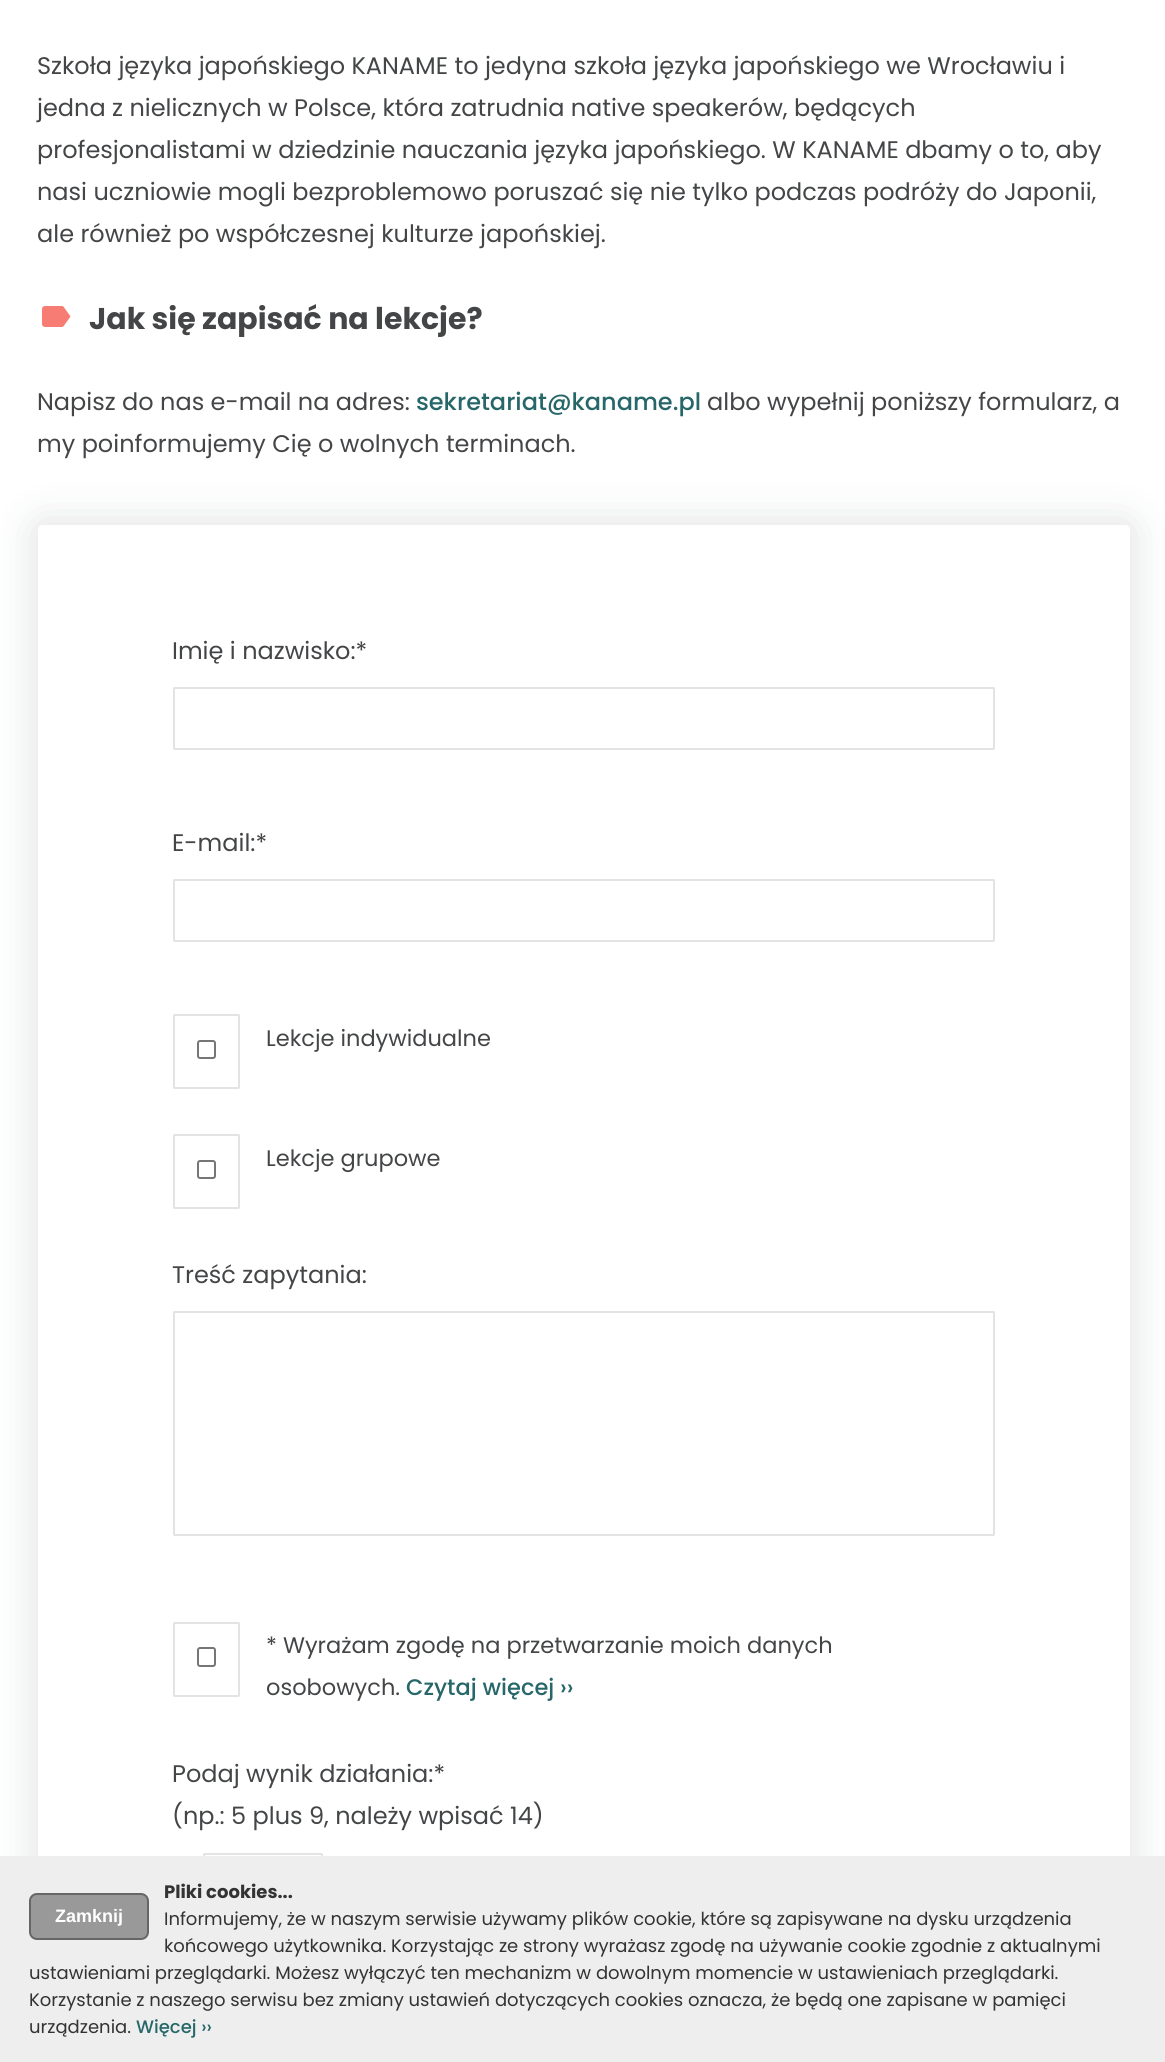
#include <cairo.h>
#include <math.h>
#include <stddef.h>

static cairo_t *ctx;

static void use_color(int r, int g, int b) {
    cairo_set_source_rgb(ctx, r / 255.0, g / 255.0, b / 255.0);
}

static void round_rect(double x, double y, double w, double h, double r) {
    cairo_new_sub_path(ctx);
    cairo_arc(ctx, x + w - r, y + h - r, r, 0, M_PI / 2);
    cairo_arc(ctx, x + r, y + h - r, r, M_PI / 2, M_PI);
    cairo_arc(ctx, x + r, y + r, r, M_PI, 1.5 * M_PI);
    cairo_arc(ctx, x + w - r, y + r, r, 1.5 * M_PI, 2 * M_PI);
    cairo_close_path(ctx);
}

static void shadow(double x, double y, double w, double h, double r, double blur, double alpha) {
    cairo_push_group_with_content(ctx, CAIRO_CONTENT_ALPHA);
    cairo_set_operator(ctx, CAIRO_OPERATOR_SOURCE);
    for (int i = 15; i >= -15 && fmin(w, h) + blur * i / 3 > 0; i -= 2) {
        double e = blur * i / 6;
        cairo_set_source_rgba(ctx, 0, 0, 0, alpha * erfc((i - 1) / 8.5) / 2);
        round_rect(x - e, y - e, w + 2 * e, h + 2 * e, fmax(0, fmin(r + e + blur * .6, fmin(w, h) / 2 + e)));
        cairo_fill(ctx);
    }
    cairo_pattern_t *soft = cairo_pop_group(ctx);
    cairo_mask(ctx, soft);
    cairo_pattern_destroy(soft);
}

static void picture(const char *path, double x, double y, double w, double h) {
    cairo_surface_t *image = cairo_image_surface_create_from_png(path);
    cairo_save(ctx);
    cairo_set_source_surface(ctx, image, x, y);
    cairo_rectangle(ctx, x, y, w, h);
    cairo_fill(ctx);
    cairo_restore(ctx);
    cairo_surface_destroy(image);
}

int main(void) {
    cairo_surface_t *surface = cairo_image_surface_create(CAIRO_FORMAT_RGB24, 1165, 2062);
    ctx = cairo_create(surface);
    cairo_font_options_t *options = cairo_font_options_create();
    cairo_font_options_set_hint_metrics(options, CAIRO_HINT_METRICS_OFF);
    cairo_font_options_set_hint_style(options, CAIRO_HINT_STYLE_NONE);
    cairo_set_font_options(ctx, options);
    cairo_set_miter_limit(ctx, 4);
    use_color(255, 255, 255);
    cairo_paint(ctx);
    cairo_select_font_face(ctx, "Poppins", CAIRO_FONT_SLANT_NORMAL, CAIRO_FONT_WEIGHT_NORMAL);
    cairo_set_font_size(ctx, 24);
    use_color(67, 69, 71);
    cairo_move_to(ctx, 37, 74);
    cairo_show_text(ctx, "Szkoła języka japońskiego KANAME to jedyna szkoła języka japońskiego we Wrocławiu i");
    cairo_move_to(ctx, 37, 116);
    cairo_show_text(ctx, "jedna z nielicznych w Polsce, która zatrudnia native speakerów, będących");
    cairo_move_to(ctx, 37, 158);
    cairo_show_text(ctx, "profesjonalistami w dziedzinie nauczania języka japońskiego. W KANAME dbamy o to, aby");
    cairo_move_to(ctx, 37, 200);
    cairo_show_text(ctx, "nasi uczniowie mogli bezproblemowo poruszać się nie tylko podczas podróży do Japonii,");
    cairo_move_to(ctx, 37, 242);
    cairo_show_text(ctx, "ale również po współczesnej kulturze japońskiej.");
    picture("img1.png", 42, 306, 29, 21);
    cairo_select_font_face(ctx, "Poppins", CAIRO_FONT_SLANT_NORMAL, CAIRO_FONT_WEIGHT_BOLD);
    cairo_set_font_size(ctx, 30);
    cairo_move_to(ctx, 89, 329);
    cairo_show_text(ctx, "Jak się zapisać na lekcje?");
    cairo_select_font_face(ctx, "Poppins", CAIRO_FONT_SLANT_NORMAL, CAIRO_FONT_WEIGHT_NORMAL);
    cairo_set_font_size(ctx, 24);
    cairo_move_to(ctx, 37, 410);
    cairo_show_text(ctx, "Napisz do nas e-mail na adres:");
    cairo_select_font_face(ctx, "Poppins Medium", CAIRO_FONT_SLANT_NORMAL, CAIRO_FONT_WEIGHT_NORMAL);
    use_color(39, 103, 105);
    cairo_move_to(ctx, 416, 410);
    cairo_show_text(ctx, "sekretariat@kaname.pl");
    cairo_select_font_face(ctx, "Poppins", CAIRO_FONT_SLANT_NORMAL, CAIRO_FONT_WEIGHT_NORMAL);
    use_color(67, 69, 71);
    cairo_move_to(ctx, 707, 410);
    cairo_show_text(ctx, "albo wypełnij poniższy formularz, a");
    cairo_save(ctx);
    cairo_set_fill_rule(ctx, CAIRO_FILL_RULE_EVEN_ODD);
    cairo_new_path(ctx);
    cairo_move_to(ctx, 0, 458);
    cairo_line_to(ctx, 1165, 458);
    cairo_line_to(ctx, 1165, 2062);
    cairo_line_to(ctx, 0, 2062);
    cairo_close_path(ctx);
    cairo_move_to(ctx, 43, 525);
    cairo_line_to(ctx, 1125, 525);
    cairo_curve_to(ctx, 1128, 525, 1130, 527, 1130, 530);
    cairo_line_to(ctx, 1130, 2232);
    cairo_curve_to(ctx, 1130, 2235, 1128, 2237, 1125, 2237);
    cairo_line_to(ctx, 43, 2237);
    cairo_curve_to(ctx, 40, 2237, 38, 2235, 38, 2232);
    cairo_line_to(ctx, 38, 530);
    cairo_curve_to(ctx, 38, 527, 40, 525, 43, 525);
    cairo_close_path(ctx);
    cairo_clip(ctx);
    use_color(29, 35, 43);
    shadow(32, 519, 1104, 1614, 11, 20, 0.12);
    cairo_restore(ctx);
    cairo_move_to(ctx, 37, 452);
    cairo_show_text(ctx, "my poinformujemy Cię o wolnych terminach.");
    cairo_move_to(ctx, 172, 659);
    cairo_show_text(ctx, "Imię i nazwisko:*");
    round_rect(174, 688, 820, 61, 0.5);
    use_color(226, 227, 227);
    cairo_stroke(ctx);
    use_color(67, 69, 71);
    cairo_move_to(ctx, 172, 851);
    cairo_show_text(ctx, "E-mail:*");
    round_rect(174, 880, 820, 61, 0.5);
    use_color(226, 227, 227);
    cairo_stroke(ctx);
    round_rect(174, 1015, 65, 73, 0.5);
    cairo_stroke(ctx);
    round_rect(198, 1041, 17, 17, 2);
    use_color(118, 118, 118);
    cairo_stroke(ctx);
    cairo_set_font_size(ctx, 22.5);
    use_color(67, 69, 71);
    cairo_move_to(ctx, 266, 1046);
    cairo_show_text(ctx, "Lekcje indywidualne");
    round_rect(174, 1135, 65, 73, 0.5);
    use_color(226, 227, 227);
    cairo_stroke(ctx);
    round_rect(198, 1161, 17, 17, 2);
    use_color(118, 118, 118);
    cairo_stroke(ctx);
    use_color(67, 69, 71);
    cairo_move_to(ctx, 266, 1166);
    cairo_show_text(ctx, "Lekcje grupowe");
    cairo_set_font_size(ctx, 24);
    cairo_move_to(ctx, 172, 1283);
    cairo_show_text(ctx, "Treść zapytania:");
    round_rect(174, 1312, 820, 223, 0.5);
    use_color(226, 227, 227);
    cairo_stroke(ctx);
    round_rect(174, 1623, 65, 73, 0.5);
    cairo_stroke(ctx);
    round_rect(198, 1648, 17, 18, 2);
    use_color(118, 118, 118);
    cairo_stroke(ctx);
    cairo_set_font_size(ctx, 22.5);
    use_color(67, 69, 71);
    cairo_move_to(ctx, 266, 1653);
    cairo_show_text(ctx, "* Wyrażam zgodę na przetwarzanie moich danych");
    cairo_move_to(ctx, 266, 1695);
    cairo_show_text(ctx, "osobowych.");
    cairo_select_font_face(ctx, "Poppins Medium", CAIRO_FONT_SLANT_NORMAL, CAIRO_FONT_WEIGHT_NORMAL);
    use_color(39, 103, 105);
    cairo_move_to(ctx, 406, 1695);
    cairo_show_text(ctx, "Czytaj więcej ››");
    cairo_select_font_face(ctx, "Poppins", CAIRO_FONT_SLANT_NORMAL, CAIRO_FONT_WEIGHT_NORMAL);
    cairo_set_font_size(ctx, 24);
    use_color(67, 69, 71);
    cairo_move_to(ctx, 172, 1782);
    cairo_show_text(ctx, "Podaj wynik działania:*");
    cairo_move_to(ctx, 172, 1824);
    cairo_show_text(ctx, "(np.: 5 plus 9, należy wpisać 14)");
    round_rect(204, 1854, 118, 61, 0.5);
    use_color(226, 227, 227);
    cairo_stroke(ctx);
    use_color(238, 238, 238);
    cairo_rectangle(ctx, 0, 1856, 1165, 206);
    cairo_fill(ctx);
    cairo_select_font_face(ctx, "Poppins", CAIRO_FONT_SLANT_NORMAL, CAIRO_FONT_WEIGHT_BOLD);
    cairo_set_font_size(ctx, 18);
    use_color(51, 51, 51);
    cairo_move_to(ctx, 164, 1898);
    cairo_show_text(ctx, "Pliki cookies...");
    use_color(153, 153, 153);
    round_rect(30, 1894, 118, 45, 7);
    cairo_fill_preserve(ctx);
    use_color(102, 102, 102);
    cairo_stroke(ctx);
    cairo_select_font_face(ctx, "Liberation Sans", CAIRO_FONT_SLANT_NORMAL, CAIRO_FONT_WEIGHT_BOLD);
    use_color(255, 255, 255);
    cairo_move_to(ctx, 55, 1922);
    cairo_show_text(ctx, "Zamknij");
    cairo_select_font_face(ctx, "Poppins", CAIRO_FONT_SLANT_NORMAL, CAIRO_FONT_WEIGHT_NORMAL);
    use_color(51, 51, 51);
    cairo_move_to(ctx, 164, 1925);
    cairo_show_text(ctx, "Informujemy, że w naszym serwisie używamy plików cookie, które są zapisywane na dysku urządzenia");
    cairo_move_to(ctx, 164, 1952);
    cairo_show_text(ctx, "końcowego użytkownika. Korzystając ze strony wyrażasz zgodę na używanie cookie zgodnie z aktualnymi");
    cairo_move_to(ctx, 29, 1979);
    cairo_show_text(ctx, "ustawieniami przeglądarki. Możesz wyłączyć ten mechanizm w dowolnym momencie w ustawieniach przeglądarki.");
    cairo_move_to(ctx, 29, 2006);
    cairo_show_text(ctx, "Korzystanie z naszego serwisu bez zmiany ustawień dotyczących cookies oznacza, że będą one zapisane w pamięci");
    cairo_move_to(ctx, 29, 2033);
    cairo_show_text(ctx, "urządzenia.");
    cairo_select_font_face(ctx, "Poppins Medium", CAIRO_FONT_SLANT_NORMAL, CAIRO_FONT_WEIGHT_NORMAL);
    use_color(39, 103, 105);
    cairo_move_to(ctx, 136, 2033);
    cairo_show_text(ctx, "Więcej ››");
    cairo_surface_write_to_png(surface, "result.png");
    cairo_font_options_destroy(options);
    cairo_destroy(ctx);
    cairo_surface_destroy(surface);
    return 0;
}
